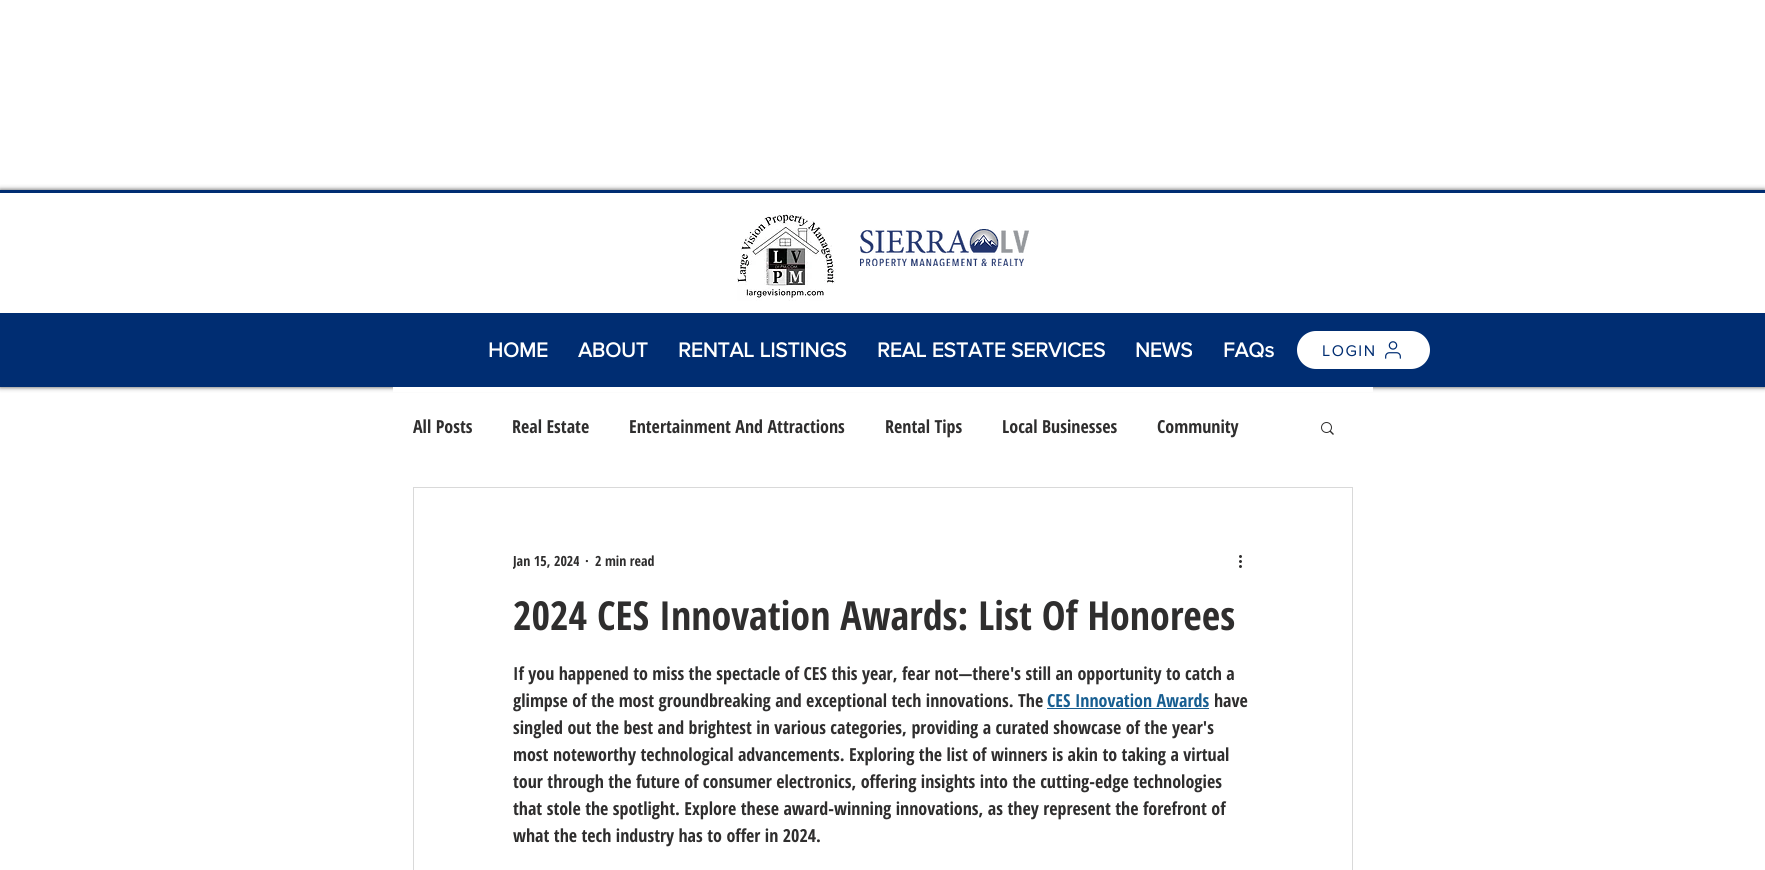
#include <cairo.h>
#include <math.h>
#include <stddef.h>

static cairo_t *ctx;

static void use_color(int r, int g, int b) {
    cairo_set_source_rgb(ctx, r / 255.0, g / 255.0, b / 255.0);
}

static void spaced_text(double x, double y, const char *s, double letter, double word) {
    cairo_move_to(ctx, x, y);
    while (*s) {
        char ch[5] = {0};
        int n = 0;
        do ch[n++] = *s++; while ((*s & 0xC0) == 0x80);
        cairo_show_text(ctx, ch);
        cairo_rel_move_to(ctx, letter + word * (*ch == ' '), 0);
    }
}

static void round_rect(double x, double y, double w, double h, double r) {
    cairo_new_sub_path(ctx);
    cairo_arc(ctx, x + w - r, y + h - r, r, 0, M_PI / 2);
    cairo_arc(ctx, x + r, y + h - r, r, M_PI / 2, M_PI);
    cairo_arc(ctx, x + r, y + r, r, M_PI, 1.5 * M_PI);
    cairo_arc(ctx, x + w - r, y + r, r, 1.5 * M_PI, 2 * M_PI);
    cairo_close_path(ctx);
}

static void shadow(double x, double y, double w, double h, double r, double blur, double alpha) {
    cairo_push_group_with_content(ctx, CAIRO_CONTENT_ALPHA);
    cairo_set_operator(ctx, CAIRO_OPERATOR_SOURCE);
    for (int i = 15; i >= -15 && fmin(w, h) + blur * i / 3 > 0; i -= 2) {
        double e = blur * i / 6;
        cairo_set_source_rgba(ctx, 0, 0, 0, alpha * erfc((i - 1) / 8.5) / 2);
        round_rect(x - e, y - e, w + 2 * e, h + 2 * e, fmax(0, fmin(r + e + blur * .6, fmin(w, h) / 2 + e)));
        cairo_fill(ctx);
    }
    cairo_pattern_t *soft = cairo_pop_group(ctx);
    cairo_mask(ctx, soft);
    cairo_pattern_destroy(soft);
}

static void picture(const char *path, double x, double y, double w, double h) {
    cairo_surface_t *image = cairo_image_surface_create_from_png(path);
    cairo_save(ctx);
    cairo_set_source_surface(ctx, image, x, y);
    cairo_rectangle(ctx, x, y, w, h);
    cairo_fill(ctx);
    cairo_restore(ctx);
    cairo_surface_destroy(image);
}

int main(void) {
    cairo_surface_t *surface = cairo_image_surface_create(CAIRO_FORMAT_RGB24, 1765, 870);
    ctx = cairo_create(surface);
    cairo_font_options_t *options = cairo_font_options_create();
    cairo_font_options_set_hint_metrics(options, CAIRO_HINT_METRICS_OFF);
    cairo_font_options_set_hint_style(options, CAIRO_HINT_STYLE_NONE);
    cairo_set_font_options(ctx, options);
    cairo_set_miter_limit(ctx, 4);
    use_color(255, 255, 255);
    cairo_paint(ctx);
    use_color(0, 0, 0);
    shadow(0, 190, 1765, 197, 0, 2.5, 0.7);
    use_color(0, 45, 114);
    cairo_rectangle(ctx, 0, 190, 1765, 197);
    cairo_fill(ctx);
    use_color(255, 255, 255);
    cairo_rectangle(ctx, 0, 193, 1765, 120);
    cairo_fill(ctx);
    picture("img1.png", 737, 213, 99, 88);
    picture("img2.png", 860, 229, 169, 37);
    cairo_select_font_face(ctx, "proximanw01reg", CAIRO_FONT_SLANT_NORMAL, CAIRO_FONT_WEIGHT_BOLD);
    cairo_set_font_size(ctx, 21);
    cairo_move_to(ctx, 488, 357);
    cairo_show_text(ctx, "HOME");
    cairo_move_to(ctx, 578, 357);
    cairo_show_text(ctx, "ABOUT");
    cairo_move_to(ctx, 678, 357);
    cairo_show_text(ctx, "RENTAL LISTINGS");
    cairo_move_to(ctx, 877, 357);
    cairo_show_text(ctx, "REAL ESTATE SERVICES");
    cairo_move_to(ctx, 1135, 357);
    cairo_show_text(ctx, "NEWS");
    cairo_move_to(ctx, 1223, 357);
    cairo_show_text(ctx, "FAQs");
    round_rect(1296, 330, 135, 40, 20);
    cairo_fill_preserve(ctx);
    use_color(0, 45, 114);
    cairo_stroke(ctx);
    cairo_select_font_face(ctx, "proximanw01reg", CAIRO_FONT_SLANT_NORMAL, CAIRO_FONT_WEIGHT_NORMAL);
    cairo_set_font_size(ctx, 16);
    spaced_text(1322, 356, "LOGIN", 1.5, 0);
    picture("img3.png", 1385, 341, 16, 18);
    use_color(255, 255, 255);
    cairo_rectangle(ctx, 393, 387, 980, 5);
    cairo_fill(ctx);
    cairo_select_font_face(ctx, "Open Sans Condensed", CAIRO_FONT_SLANT_NORMAL, CAIRO_FONT_WEIGHT_BOLD);
    cairo_set_font_size(ctx, 18);
    use_color(47, 46, 46);
    cairo_move_to(ctx, 413, 433);
    cairo_show_text(ctx, "All Posts");
    cairo_move_to(ctx, 512, 433);
    cairo_show_text(ctx, "Real Estate");
    cairo_move_to(ctx, 629, 433);
    cairo_show_text(ctx, "Entertainment And Attractions");
    cairo_move_to(ctx, 885, 433);
    cairo_show_text(ctx, "Rental Tips");
    cairo_move_to(ctx, 1002, 433);
    cairo_show_text(ctx, "Local Businesses");
    cairo_move_to(ctx, 1157, 433);
    cairo_show_text(ctx, "Community");
    picture("img4.png", 1321, 422, 13, 13);
    cairo_rectangle(ctx, 413.5, 487.5, 939, 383);
    use_color(217, 217, 217);
    cairo_set_line_width(ctx, 1);
    cairo_stroke(ctx);
    cairo_save(ctx);
    cairo_rectangle(ctx, 513, 550, 66, 21);
    cairo_clip(ctx);
    cairo_set_font_size(ctx, 14);
    use_color(47, 46, 46);
    cairo_move_to(ctx, 513, 566);
    cairo_show_text(ctx, "Jan 15, 2024");
    cairo_restore(ctx);
    cairo_set_font_size(ctx, 14);
    use_color(47, 46, 46);
    cairo_move_to(ctx, 585, 566);
    cairo_show_text(ctx, "·");
    cairo_move_to(ctx, 595, 566);
    cairo_show_text(ctx, "2 min read");
    picture("img5.png", 1239, 555, 3, 13);
    cairo_set_font_size(ctx, 40);
    cairo_move_to(ctx, 513, 630);
    cairo_show_text(ctx, "2024 CES Innovation Awards: List Of Honorees");
    cairo_set_font_size(ctx, 18);
    cairo_move_to(ctx, 513, 680);
    cairo_show_text(ctx, "If you happened to miss the spectacle of CES this year, fear not—there's still an opportunity to catch a");
    cairo_move_to(ctx, 513, 707);
    cairo_show_text(ctx, "glimpse of the most groundbreaking and exceptional tech innovations. The");
    use_color(23, 94, 145);
    cairo_move_to(ctx, 1047, 707);
    cairo_show_text(ctx, "CES Innovation Awards");
    cairo_rectangle(ctx, 1047, 708, 162, 1);
    cairo_fill(ctx);
    use_color(47, 46, 46);
    cairo_move_to(ctx, 1214, 707);
    cairo_show_text(ctx, "have");
    cairo_move_to(ctx, 513, 734);
    cairo_show_text(ctx, "singled out the best and brightest in various categories, providing a curated showcase of the year's");
    cairo_move_to(ctx, 513, 761);
    cairo_show_text(ctx, "most noteworthy technological advancements. Exploring the list of winners is akin to taking a virtual");
    cairo_move_to(ctx, 513, 788);
    cairo_show_text(ctx, "tour through the future of consumer electronics, offering insights into the cutting-edge technologies");
    cairo_move_to(ctx, 513, 815);
    cairo_show_text(ctx, "that stole the spotlight. Explore these award-winning innovations, as they represent the forefront of");
    cairo_move_to(ctx, 513, 842);
    cairo_show_text(ctx, "what the tech industry has to offer in 2024.");
    cairo_surface_write_to_png(surface, "result.png");
    cairo_font_options_destroy(options);
    cairo_destroy(ctx);
    cairo_surface_destroy(surface);
    return 0;
}
